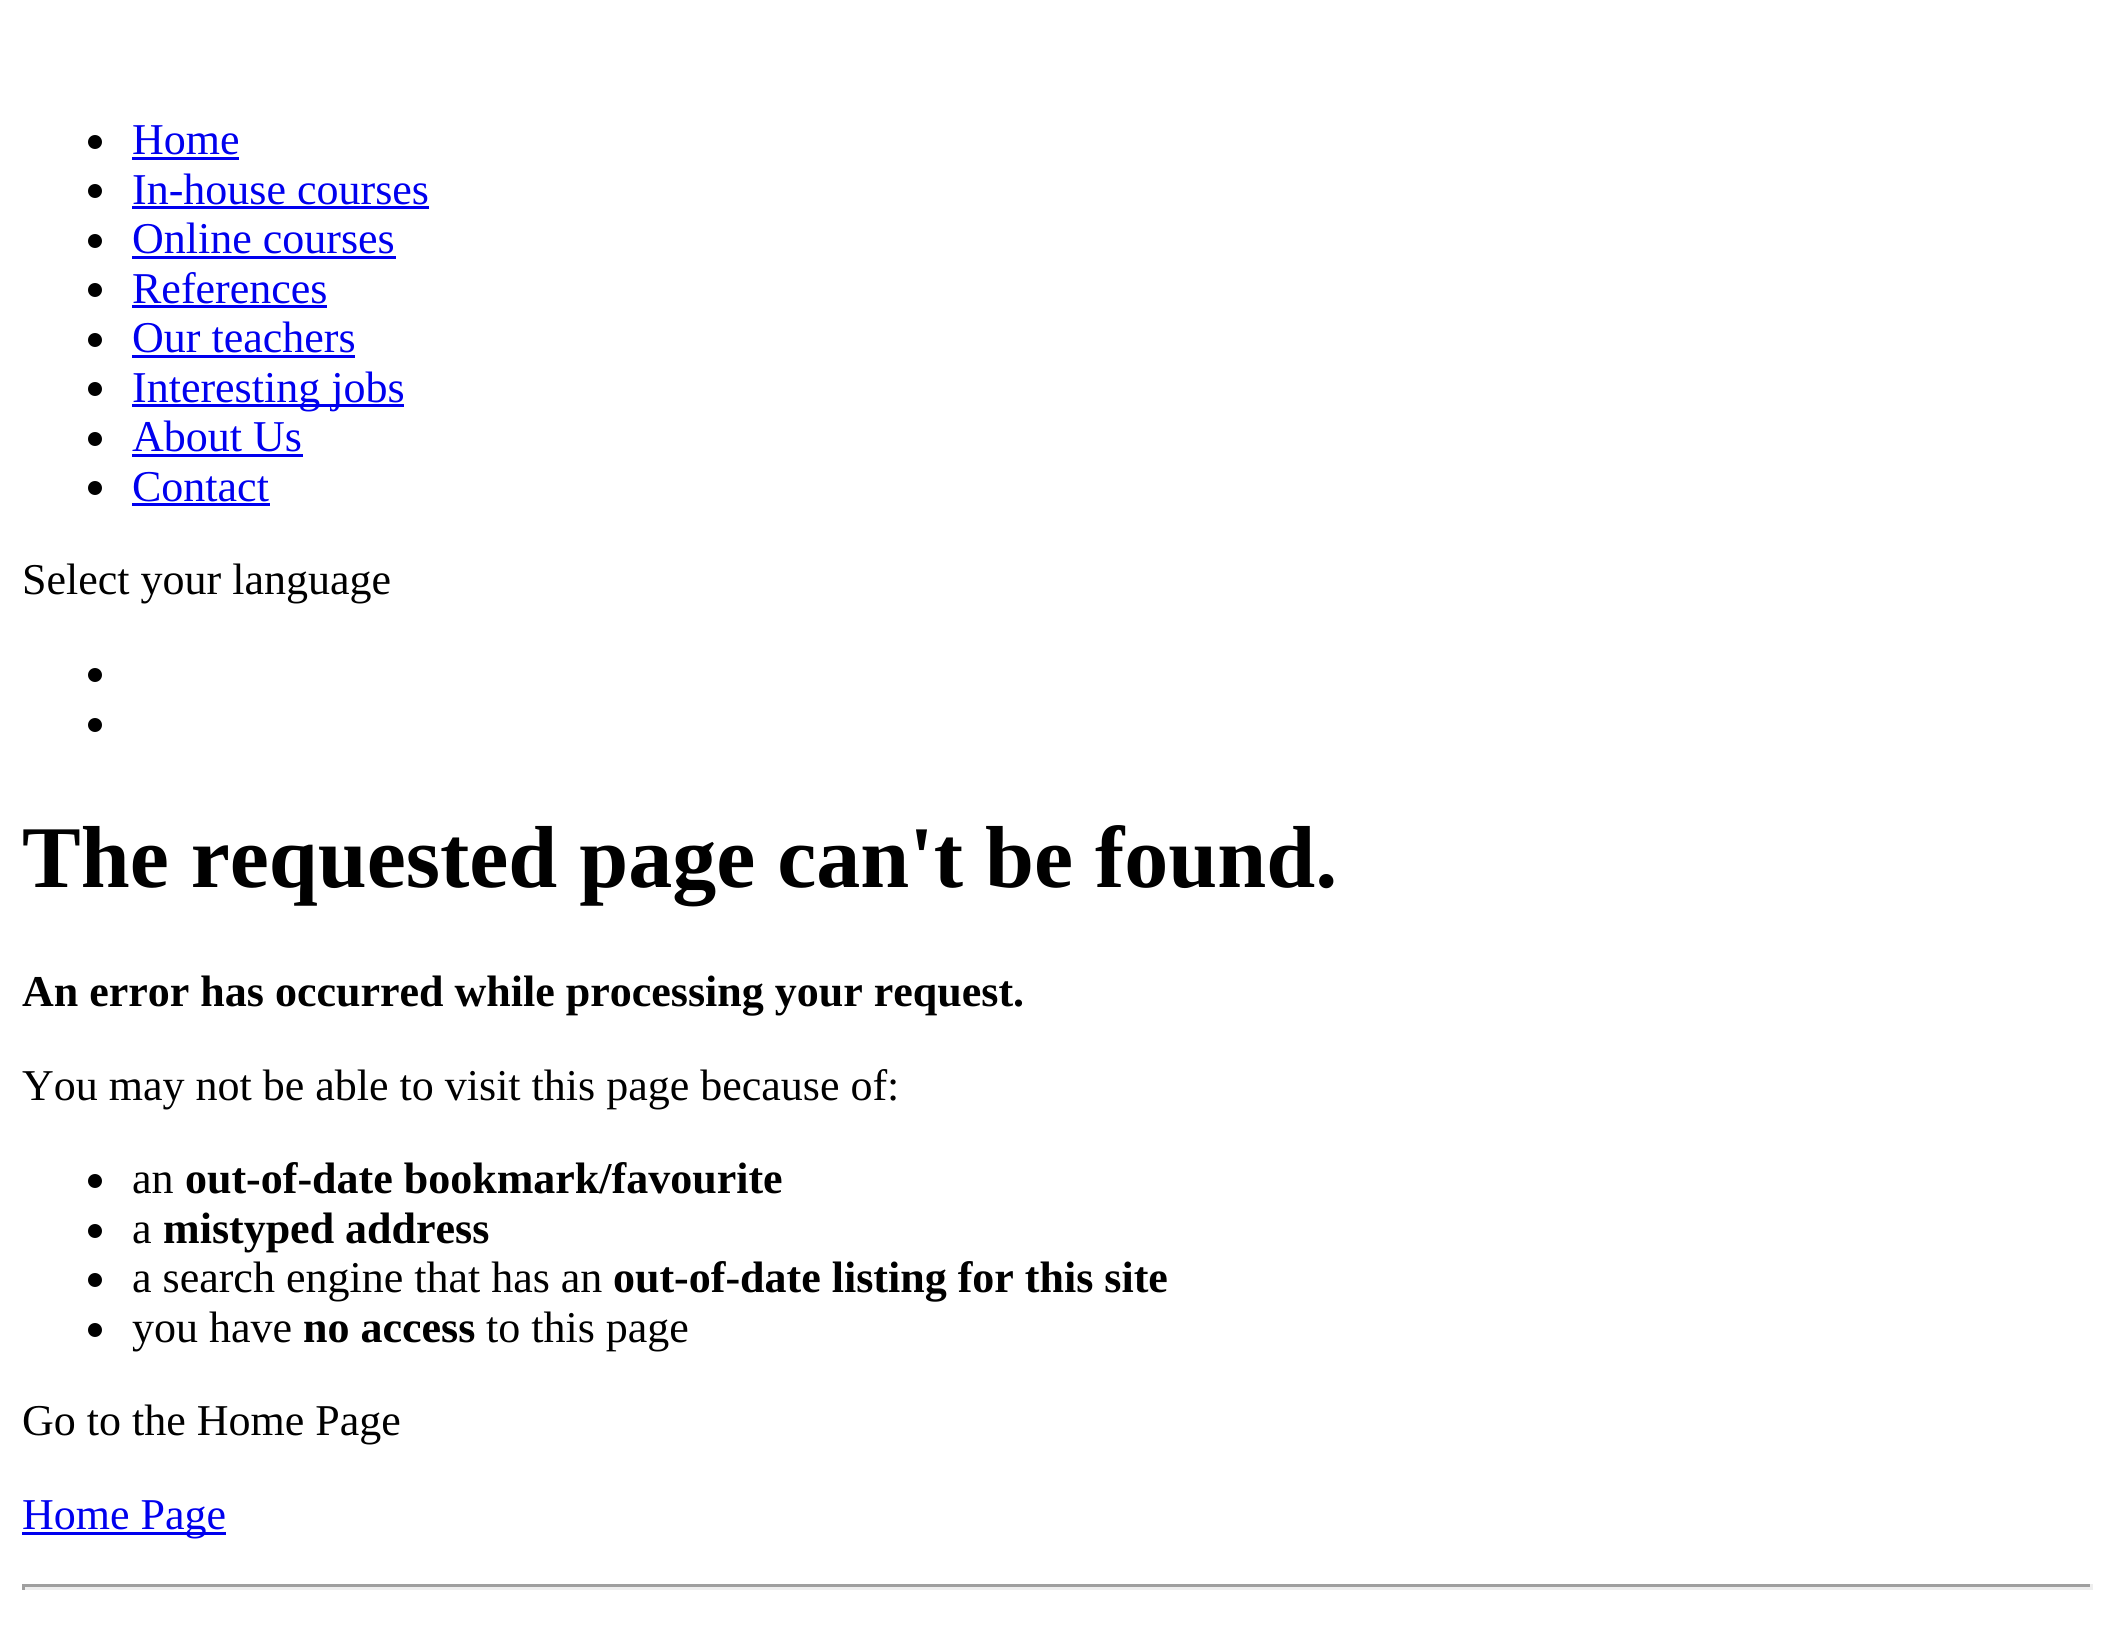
#include <cairo.h>
#include <math.h>
#include <stddef.h>

static cairo_t *ctx;

static void use_color(int r, int g, int b) {
    cairo_set_source_rgb(ctx, r / 255.0, g / 255.0, b / 255.0);
}

int main(void) {
    cairo_surface_t *surface = cairo_image_surface_create(CAIRO_FORMAT_RGB24, 2113, 1652);
    ctx = cairo_create(surface);
    cairo_font_options_t *options = cairo_font_options_create();
    cairo_font_options_set_hint_metrics(options, CAIRO_HINT_METRICS_OFF);
    cairo_font_options_set_hint_style(options, CAIRO_HINT_STYLE_NONE);
    cairo_set_font_options(ctx, options);
    cairo_set_miter_limit(ctx, 4);
    use_color(255, 255, 255);
    cairo_paint(ctx);
    use_color(0, 0, 0);
    cairo_arc(ctx, 95, 142, 7, 0, 2 * M_PI);
    cairo_fill(ctx);
    cairo_select_font_face(ctx, "Liberation Serif", CAIRO_FONT_SLANT_NORMAL, CAIRO_FONT_WEIGHT_NORMAL);
    cairo_set_font_size(ctx, 44);
    use_color(0, 0, 238);
    cairo_move_to(ctx, 132, 154);
    cairo_show_text(ctx, "Home");
    cairo_rectangle(ctx, 132, 157, 107, 3);
    cairo_fill(ctx);
    use_color(0, 0, 0);
    cairo_arc(ctx, 95, 191, 7, 0, 2 * M_PI);
    cairo_fill(ctx);
    use_color(0, 0, 238);
    cairo_move_to(ctx, 132, 204);
    cairo_show_text(ctx, "In-house courses");
    cairo_rectangle(ctx, 132, 206, 297, 3);
    cairo_fill(ctx);
    use_color(0, 0, 0);
    cairo_arc(ctx, 95, 241, 7, 0, 2 * M_PI);
    cairo_fill(ctx);
    use_color(0, 0, 238);
    cairo_move_to(ctx, 132, 253);
    cairo_show_text(ctx, "Online courses");
    cairo_rectangle(ctx, 132, 256, 264, 3);
    cairo_fill(ctx);
    use_color(0, 0, 0);
    cairo_arc(ctx, 95, 290, 7, 0, 2 * M_PI);
    cairo_fill(ctx);
    use_color(0, 0, 238);
    cairo_move_to(ctx, 132, 303);
    cairo_show_text(ctx, "References");
    cairo_rectangle(ctx, 132, 305, 195, 3);
    cairo_fill(ctx);
    use_color(0, 0, 0);
    cairo_arc(ctx, 95, 340, 7, 0, 2 * M_PI);
    cairo_fill(ctx);
    use_color(0, 0, 238);
    cairo_move_to(ctx, 132, 352);
    cairo_show_text(ctx, "Our teachers");
    cairo_rectangle(ctx, 132, 355, 223, 3);
    cairo_fill(ctx);
    use_color(0, 0, 0);
    cairo_arc(ctx, 95, 389, 7, 0, 2 * M_PI);
    cairo_fill(ctx);
    use_color(0, 0, 238);
    cairo_rectangle(ctx, 132, 404, 272, 3);
    cairo_fill(ctx);
    cairo_move_to(ctx, 132, 402);
    cairo_show_text(ctx, "Interesting jobs");
    use_color(0, 0, 0);
    cairo_new_path(ctx);
    cairo_arc(ctx, 95, 439, 7, 0, 2 * M_PI);
    cairo_fill(ctx);
    use_color(0, 0, 238);
    cairo_move_to(ctx, 132, 451);
    cairo_show_text(ctx, "About Us");
    cairo_rectangle(ctx, 132, 454, 171, 3);
    cairo_fill(ctx);
    use_color(0, 0, 0);
    cairo_arc(ctx, 95, 488, 7, 0, 2 * M_PI);
    cairo_fill(ctx);
    use_color(0, 0, 238);
    cairo_move_to(ctx, 132, 501);
    cairo_show_text(ctx, "Contact");
    cairo_rectangle(ctx, 132, 503, 138, 3);
    cairo_fill(ctx);
    use_color(0, 0, 0);
    cairo_move_to(ctx, 22, 594);
    cairo_show_text(ctx, "Select your language");
    cairo_new_path(ctx);
    cairo_arc(ctx, 95, 675, 7, 0, 2 * M_PI);
    cairo_fill(ctx);
    cairo_arc(ctx, 95, 725, 7, 0, 2 * M_PI);
    cairo_fill(ctx);
    cairo_select_font_face(ctx, "Liberation Serif", CAIRO_FONT_SLANT_NORMAL, CAIRO_FONT_WEIGHT_BOLD);
    cairo_set_font_size(ctx, 88);
    cairo_move_to(ctx, 22, 887);
    cairo_show_text(ctx, "The requested page can't be found.");
    cairo_set_font_size(ctx, 44);
    cairo_move_to(ctx, 22, 1006);
    cairo_show_text(ctx, "An error has occurred while processing your request.");
    cairo_select_font_face(ctx, "Liberation Serif", CAIRO_FONT_SLANT_NORMAL, CAIRO_FONT_WEIGHT_NORMAL);
    cairo_move_to(ctx, 22, 1100);
    cairo_show_text(ctx, "You may not be able to visit this page because of:");
    cairo_new_path(ctx);
    cairo_arc(ctx, 95, 1181, 7, 0, 2 * M_PI);
    cairo_fill(ctx);
    cairo_move_to(ctx, 132, 1193);
    cairo_show_text(ctx, "an");
    cairo_select_font_face(ctx, "Liberation Serif", CAIRO_FONT_SLANT_NORMAL, CAIRO_FONT_WEIGHT_BOLD);
    cairo_move_to(ctx, 185, 1193);
    cairo_show_text(ctx, "out-of-date bookmark/favourite");
    cairo_new_path(ctx);
    cairo_arc(ctx, 95, 1231, 7, 0, 2 * M_PI);
    cairo_fill(ctx);
    cairo_select_font_face(ctx, "Liberation Serif", CAIRO_FONT_SLANT_NORMAL, CAIRO_FONT_WEIGHT_NORMAL);
    cairo_move_to(ctx, 132, 1243);
    cairo_show_text(ctx, "a");
    cairo_select_font_face(ctx, "Liberation Serif", CAIRO_FONT_SLANT_NORMAL, CAIRO_FONT_WEIGHT_BOLD);
    cairo_move_to(ctx, 163, 1243);
    cairo_show_text(ctx, "mistyped address");
    cairo_new_path(ctx);
    cairo_arc(ctx, 95, 1280, 7, 0, 2 * M_PI);
    cairo_fill(ctx);
    cairo_select_font_face(ctx, "Liberation Serif", CAIRO_FONT_SLANT_NORMAL, CAIRO_FONT_WEIGHT_NORMAL);
    cairo_move_to(ctx, 132, 1292);
    cairo_show_text(ctx, "a search engine that has an");
    cairo_select_font_face(ctx, "Liberation Serif", CAIRO_FONT_SLANT_NORMAL, CAIRO_FONT_WEIGHT_BOLD);
    cairo_move_to(ctx, 613, 1292);
    cairo_show_text(ctx, "out-of-date listing for this site");
    cairo_new_path(ctx);
    cairo_arc(ctx, 95, 1330, 7, 0, 2 * M_PI);
    cairo_fill(ctx);
    cairo_select_font_face(ctx, "Liberation Serif", CAIRO_FONT_SLANT_NORMAL, CAIRO_FONT_WEIGHT_NORMAL);
    cairo_move_to(ctx, 132, 1342);
    cairo_show_text(ctx, "you have");
    cairo_select_font_face(ctx, "Liberation Serif", CAIRO_FONT_SLANT_NORMAL, CAIRO_FONT_WEIGHT_BOLD);
    cairo_move_to(ctx, 303, 1342);
    cairo_show_text(ctx, "no access");
    cairo_select_font_face(ctx, "Liberation Serif", CAIRO_FONT_SLANT_NORMAL, CAIRO_FONT_WEIGHT_NORMAL);
    cairo_move_to(ctx, 486, 1342);
    cairo_show_text(ctx, "to this page");
    cairo_move_to(ctx, 22, 1435);
    cairo_show_text(ctx, "Go to the Home Page");
    use_color(0, 0, 238);
    cairo_rectangle(ctx, 22, 1532, 204, 3);
    cairo_fill(ctx);
    cairo_move_to(ctx, 22, 1529);
    cairo_show_text(ctx, "Home Page");
    use_color(159, 159, 159);
    cairo_rectangle(ctx, 22, 1584, 2071, 3);
    cairo_fill(ctx);
    use_color(238, 238, 238);
    cairo_rectangle(ctx, 2090, 1584, 3, 6);
    cairo_fill(ctx);
    cairo_rectangle(ctx, 22, 1587, 2071, 3);
    cairo_fill(ctx);
    use_color(159, 159, 159);
    cairo_rectangle(ctx, 22, 1584, 3, 6);
    cairo_fill(ctx);
    cairo_surface_write_to_png(surface, "result.png");
    cairo_font_options_destroy(options);
    cairo_destroy(ctx);
    cairo_surface_destroy(surface);
    return 0;
}
